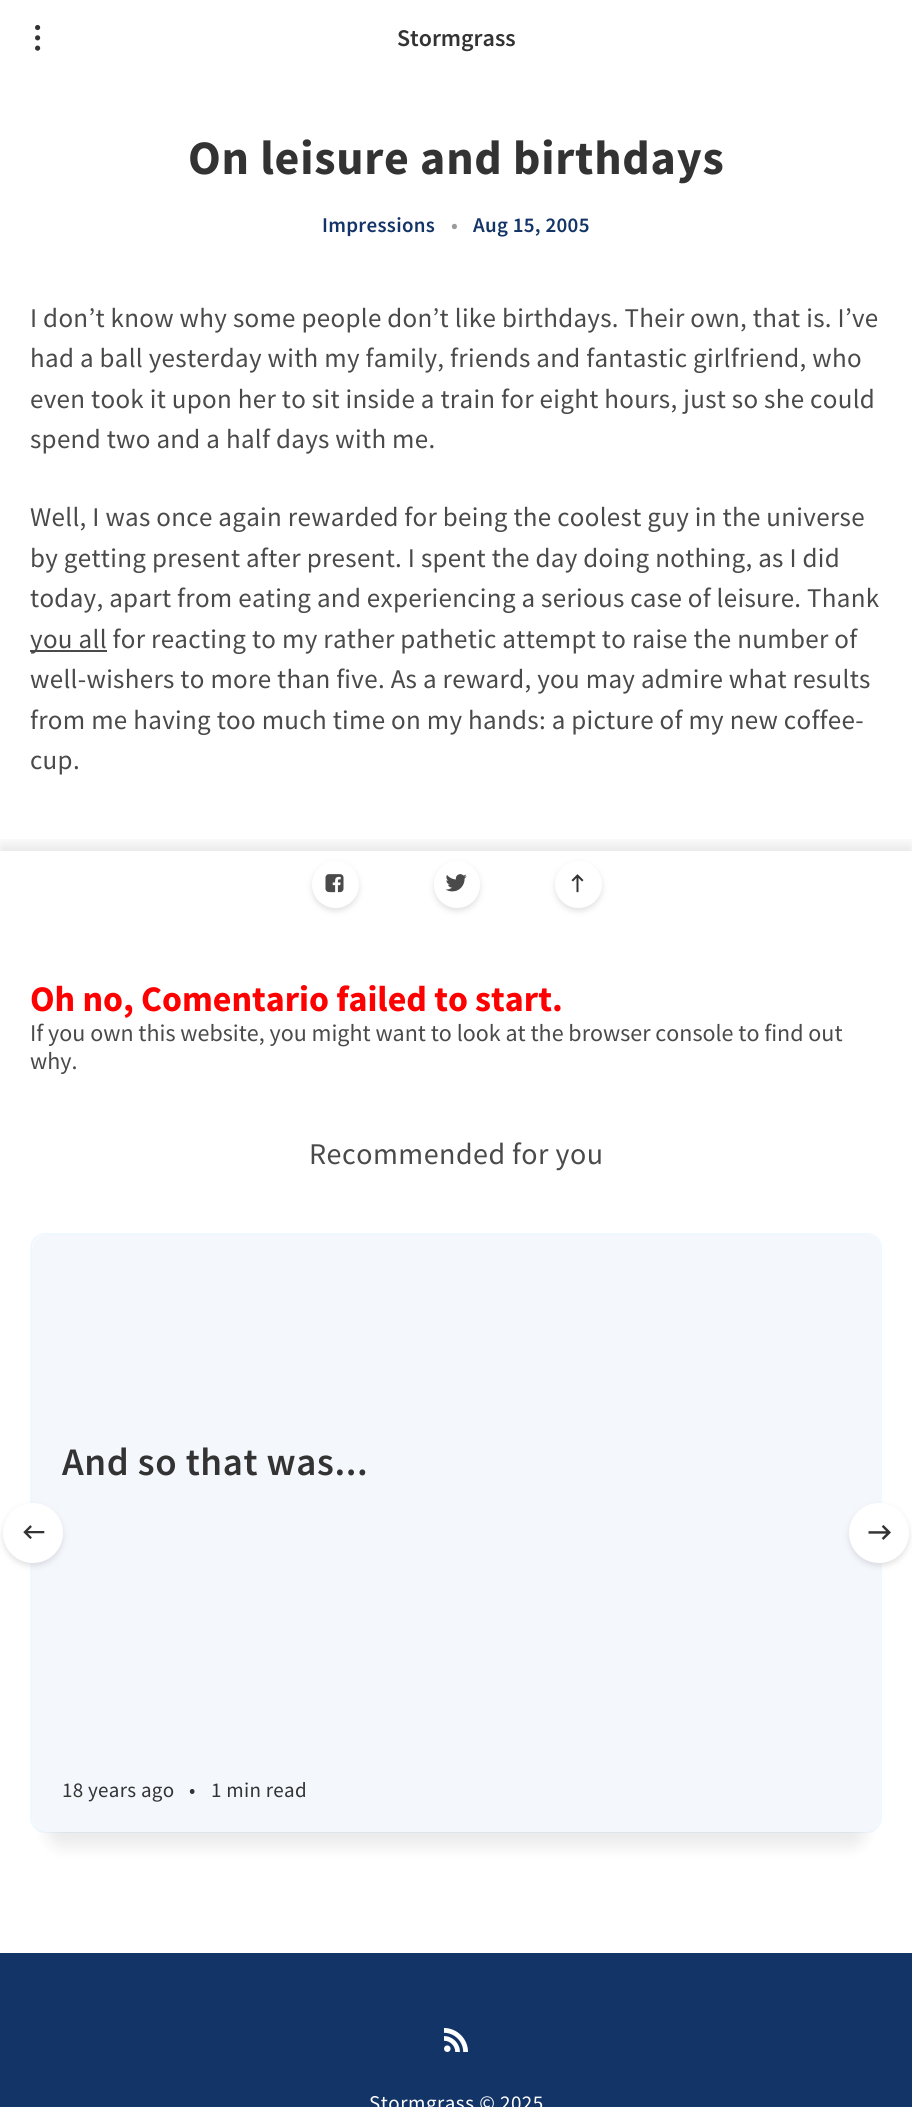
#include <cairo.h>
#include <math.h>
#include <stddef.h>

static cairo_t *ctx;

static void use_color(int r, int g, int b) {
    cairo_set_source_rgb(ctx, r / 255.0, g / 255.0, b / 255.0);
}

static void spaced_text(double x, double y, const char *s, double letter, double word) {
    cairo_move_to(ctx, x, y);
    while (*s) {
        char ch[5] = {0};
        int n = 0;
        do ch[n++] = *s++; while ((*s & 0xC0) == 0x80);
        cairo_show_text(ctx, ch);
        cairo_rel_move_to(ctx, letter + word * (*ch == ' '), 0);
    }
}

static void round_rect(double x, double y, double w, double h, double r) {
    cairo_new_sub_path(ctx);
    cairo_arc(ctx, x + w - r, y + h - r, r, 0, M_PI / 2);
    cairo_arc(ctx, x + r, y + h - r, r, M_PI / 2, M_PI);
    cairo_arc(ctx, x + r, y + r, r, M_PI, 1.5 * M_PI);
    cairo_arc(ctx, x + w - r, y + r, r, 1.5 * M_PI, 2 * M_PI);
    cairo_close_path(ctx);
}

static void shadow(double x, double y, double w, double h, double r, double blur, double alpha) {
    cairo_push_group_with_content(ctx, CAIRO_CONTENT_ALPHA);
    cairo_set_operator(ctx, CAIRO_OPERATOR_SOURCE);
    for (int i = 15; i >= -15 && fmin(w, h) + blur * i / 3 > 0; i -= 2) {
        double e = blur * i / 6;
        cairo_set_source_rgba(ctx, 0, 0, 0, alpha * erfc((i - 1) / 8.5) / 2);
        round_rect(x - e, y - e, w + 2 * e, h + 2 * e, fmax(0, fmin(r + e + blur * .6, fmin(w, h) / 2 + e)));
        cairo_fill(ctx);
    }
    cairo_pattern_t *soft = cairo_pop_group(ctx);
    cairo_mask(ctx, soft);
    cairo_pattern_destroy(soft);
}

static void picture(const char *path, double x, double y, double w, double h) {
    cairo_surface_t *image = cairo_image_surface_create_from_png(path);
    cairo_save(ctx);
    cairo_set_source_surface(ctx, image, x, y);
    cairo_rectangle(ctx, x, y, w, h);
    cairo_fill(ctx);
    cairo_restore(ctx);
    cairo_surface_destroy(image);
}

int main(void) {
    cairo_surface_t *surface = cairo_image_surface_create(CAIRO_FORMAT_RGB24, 912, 2107);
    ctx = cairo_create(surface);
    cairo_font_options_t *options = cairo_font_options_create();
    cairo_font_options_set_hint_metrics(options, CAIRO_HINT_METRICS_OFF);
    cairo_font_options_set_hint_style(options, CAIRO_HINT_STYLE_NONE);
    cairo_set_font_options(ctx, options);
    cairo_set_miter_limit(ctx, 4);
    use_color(255, 255, 255);
    cairo_paint(ctx);
    picture("img1.png", 35, 24, 6, 27);
    cairo_select_font_face(ctx, "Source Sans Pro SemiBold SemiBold", CAIRO_FONT_SLANT_NORMAL, CAIRO_FONT_WEIGHT_NORMAL);
    cairo_set_font_size(ctx, 24);
    use_color(51, 51, 51);
    cairo_move_to(ctx, 397, 46);
    cairo_show_text(ctx, "Stormgrass");
    cairo_select_font_face(ctx, "Source Sans Pro", CAIRO_FONT_SLANT_NORMAL, CAIRO_FONT_WEIGHT_BOLD);
    cairo_set_font_size(ctx, 48);
    spaced_text(188, 174, "On leisure and birthdays", 0.75, 0);
    cairo_select_font_face(ctx, "Source Sans Pro SemiBold SemiBold", CAIRO_FONT_SLANT_NORMAL, CAIRO_FONT_WEIGHT_NORMAL);
    cairo_set_font_size(ctx, 21);
    use_color(19, 52, 103);
    spaced_text(322, 232, "Impressions", 0.3, 0);
    use_color(155, 155, 155);
    spaced_text(451, 232, "•", 0.3, 0);
    use_color(19, 52, 103);
    spaced_text(473, 232, "Aug 15, 2005", 0.3, 0);
    cairo_select_font_face(ctx, "Source Sans Pro", CAIRO_FONT_SLANT_NORMAL, CAIRO_FONT_WEIGHT_NORMAL);
    cairo_set_font_size(ctx, 27);
    use_color(74, 74, 74);
    spaced_text(30, 327, "I don’t know why some people don’t like birthdays. Their own, that is. I’ve", 0.3, 0);
    spaced_text(30, 367, "had a ball yesterday with my family, friends and fantastic girlfriend, who", 0.3, 0);
    spaced_text(30, 408, "even took it upon her to sit inside a train for eight hours, just so she could", 0.3, 0);
    spaced_text(30, 448, "spend two and a half days with me.", 0.3, 0);
    spaced_text(30, 526, "Well, I was once again rewarded for being the coolest guy in the universe", 0.3, 0);
    spaced_text(30, 567, "by getting present after present. I spent the day doing nothing, as I did", 0.3, 0);
    spaced_text(30, 607, "today, apart from eating and experiencing a serious case of leisure. Thank", 0.3, 0);
    cairo_rectangle(ctx, 30, 650, 77, 2);
    cairo_fill(ctx);
    spaced_text(30, 648, "you all for reacting to my rather pathetic attempt to raise the number of", 0.3, 0);
    spaced_text(30, 688, "well-wishers to more than five. As a reward, you may admire what results", 0.3, 0);
    spaced_text(30, 729, "from me having too much time on my hands: a picture of my new coffee-", 0.3, 0);
    spaced_text(30, 769, "cup.", 0.3, 0);
    cairo_save(ctx);
    cairo_rectangle(ctx, 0, 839, 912, 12);
    cairo_clip(ctx);
    use_color(0, 0, 0);
    shadow(0, 845, 912, 67, 0, 7.5, 0.1);
    cairo_restore(ctx);
    use_color(107, 107, 107);
    shadow(312, 864, 47, 47, 23.5, 3, 0.2);
    use_color(255, 255, 255);
    cairo_arc(ctx, 335.5, 884.5, 23.5, 0, 2 * M_PI);
    cairo_fill(ctx);
    picture("img2.png", 325, 874, 19, 19);
    use_color(107, 107, 107);
    shadow(434, 864, 46, 47, 23, 3, 0.2);
    use_color(255, 255, 255);
    round_rect(434, 861, 46, 47, 23);
    cairo_fill(ctx);
    picture("img3.png", 445, 874, 22, 18);
    use_color(107, 107, 107);
    shadow(555, 864, 47, 47, 23.5, 3, 0.2);
    use_color(255, 255, 255);
    cairo_arc(ctx, 578.5, 884.5, 23.5, 0, 2 * M_PI);
    cairo_fill(ctx);
    picture("img4.png", 571, 874, 13, 19);
    cairo_select_font_face(ctx, "Source Sans Pro", CAIRO_FONT_SLANT_NORMAL, CAIRO_FONT_WEIGHT_BOLD);
    cairo_set_font_size(ctx, 36);
    use_color(255, 0, 0);
    cairo_move_to(ctx, 30, 1011);
    cairo_show_text(ctx, "Oh no, Comentario failed to start.");
    cairo_select_font_face(ctx, "Source Sans Pro", CAIRO_FONT_SLANT_NORMAL, CAIRO_FONT_WEIGHT_NORMAL);
    cairo_set_font_size(ctx, 24);
    use_color(74, 74, 74);
    cairo_move_to(ctx, 30, 1041);
    cairo_show_text(ctx, "If you own this website, you might want to look at the browser console to find out");
    cairo_move_to(ctx, 30, 1069);
    cairo_show_text(ctx, "why.");
    cairo_set_font_size(ctx, 30);
    spaced_text(309, 1164, "Recommended for you", 0.5, 0);
    round_rect(31, 1234, 850, 598, 14);
    use_color(240, 248, 255);
    cairo_stroke(ctx);
    use_color(0, 0, 0);
    shadow(47, 1265, 819, 582, 15, 7.5, 0.08);
    use_color(244, 248, 253);
    cairo_new_path(ctx);
    cairo_move_to(ctx, 32, 1362);
    cairo_line_to(ctx, 881, 1362);
    cairo_line_to(ctx, 881, 1817);
    cairo_curve_to(ctx, 881, 1825.5, 874.5, 1832, 866, 1832);
    cairo_line_to(ctx, 47, 1832);
    cairo_curve_to(ctx, 38.5, 1832, 32, 1825.5, 32, 1817);
    cairo_close_path(ctx);
    cairo_fill(ctx);
    use_color(107, 107, 107);
    shadow(3, 1506, 60, 60, 30, 3, 0.2);
    use_color(255, 255, 255);
    cairo_arc(ctx, 33, 1533, 30, 0, 2 * M_PI);
    cairo_fill(ctx);
    picture("img5.png", 23, 1525, 22, 14);
    use_color(244, 248, 253);
    cairo_new_path(ctx);
    cairo_move_to(ctx, 47, 1235);
    cairo_line_to(ctx, 866, 1235);
    cairo_curve_to(ctx, 874.5, 1235, 881, 1241.5, 881, 1250);
    cairo_line_to(ctx, 881, 1362);
    cairo_line_to(ctx, 32, 1362);
    cairo_line_to(ctx, 32, 1250);
    cairo_curve_to(ctx, 32, 1241.5, 38.5, 1235, 47, 1235);
    cairo_close_path(ctx);
    cairo_fill(ctx);
    cairo_select_font_face(ctx, "Source Sans Pro SemiBold SemiBold", CAIRO_FONT_SLANT_NORMAL, CAIRO_FONT_WEIGHT_NORMAL);
    cairo_set_font_size(ctx, 39);
    use_color(51, 51, 51);
    spaced_text(62, 1475, "And so that was...", 0.6, 0);
    cairo_select_font_face(ctx, "Source Sans Pro", CAIRO_FONT_SLANT_NORMAL, CAIRO_FONT_WEIGHT_NORMAL);
    cairo_set_font_size(ctx, 21);
    spaced_text(62, 1797, "18 years ago", 0.3, 0);
    spaced_text(189, 1797, "•", 0.3, 0);
    spaced_text(211, 1797, "1 min read", 0.3, 0);
    use_color(107, 107, 107);
    shadow(849, 1506, 60, 60, 30, 3, 0.2);
    use_color(255, 255, 255);
    cairo_arc(ctx, 879, 1533, 30, 0, 2 * M_PI);
    cairo_fill(ctx);
    picture("img6.png", 868, 1525, 23, 15);
    use_color(19, 52, 103);
    cairo_rectangle(ctx, 0, 1953, 912, 154);
    cairo_fill(ctx);
    picture("img7.png", 444, 2028, 24, 24);
    use_color(255, 255, 255);
    spaced_text(369, 2110, "Stormgrass © 2025", 0.5, 0);
    cairo_surface_write_to_png(surface, "result.png");
    cairo_font_options_destroy(options);
    cairo_destroy(ctx);
    cairo_surface_destroy(surface);
    return 0;
}
